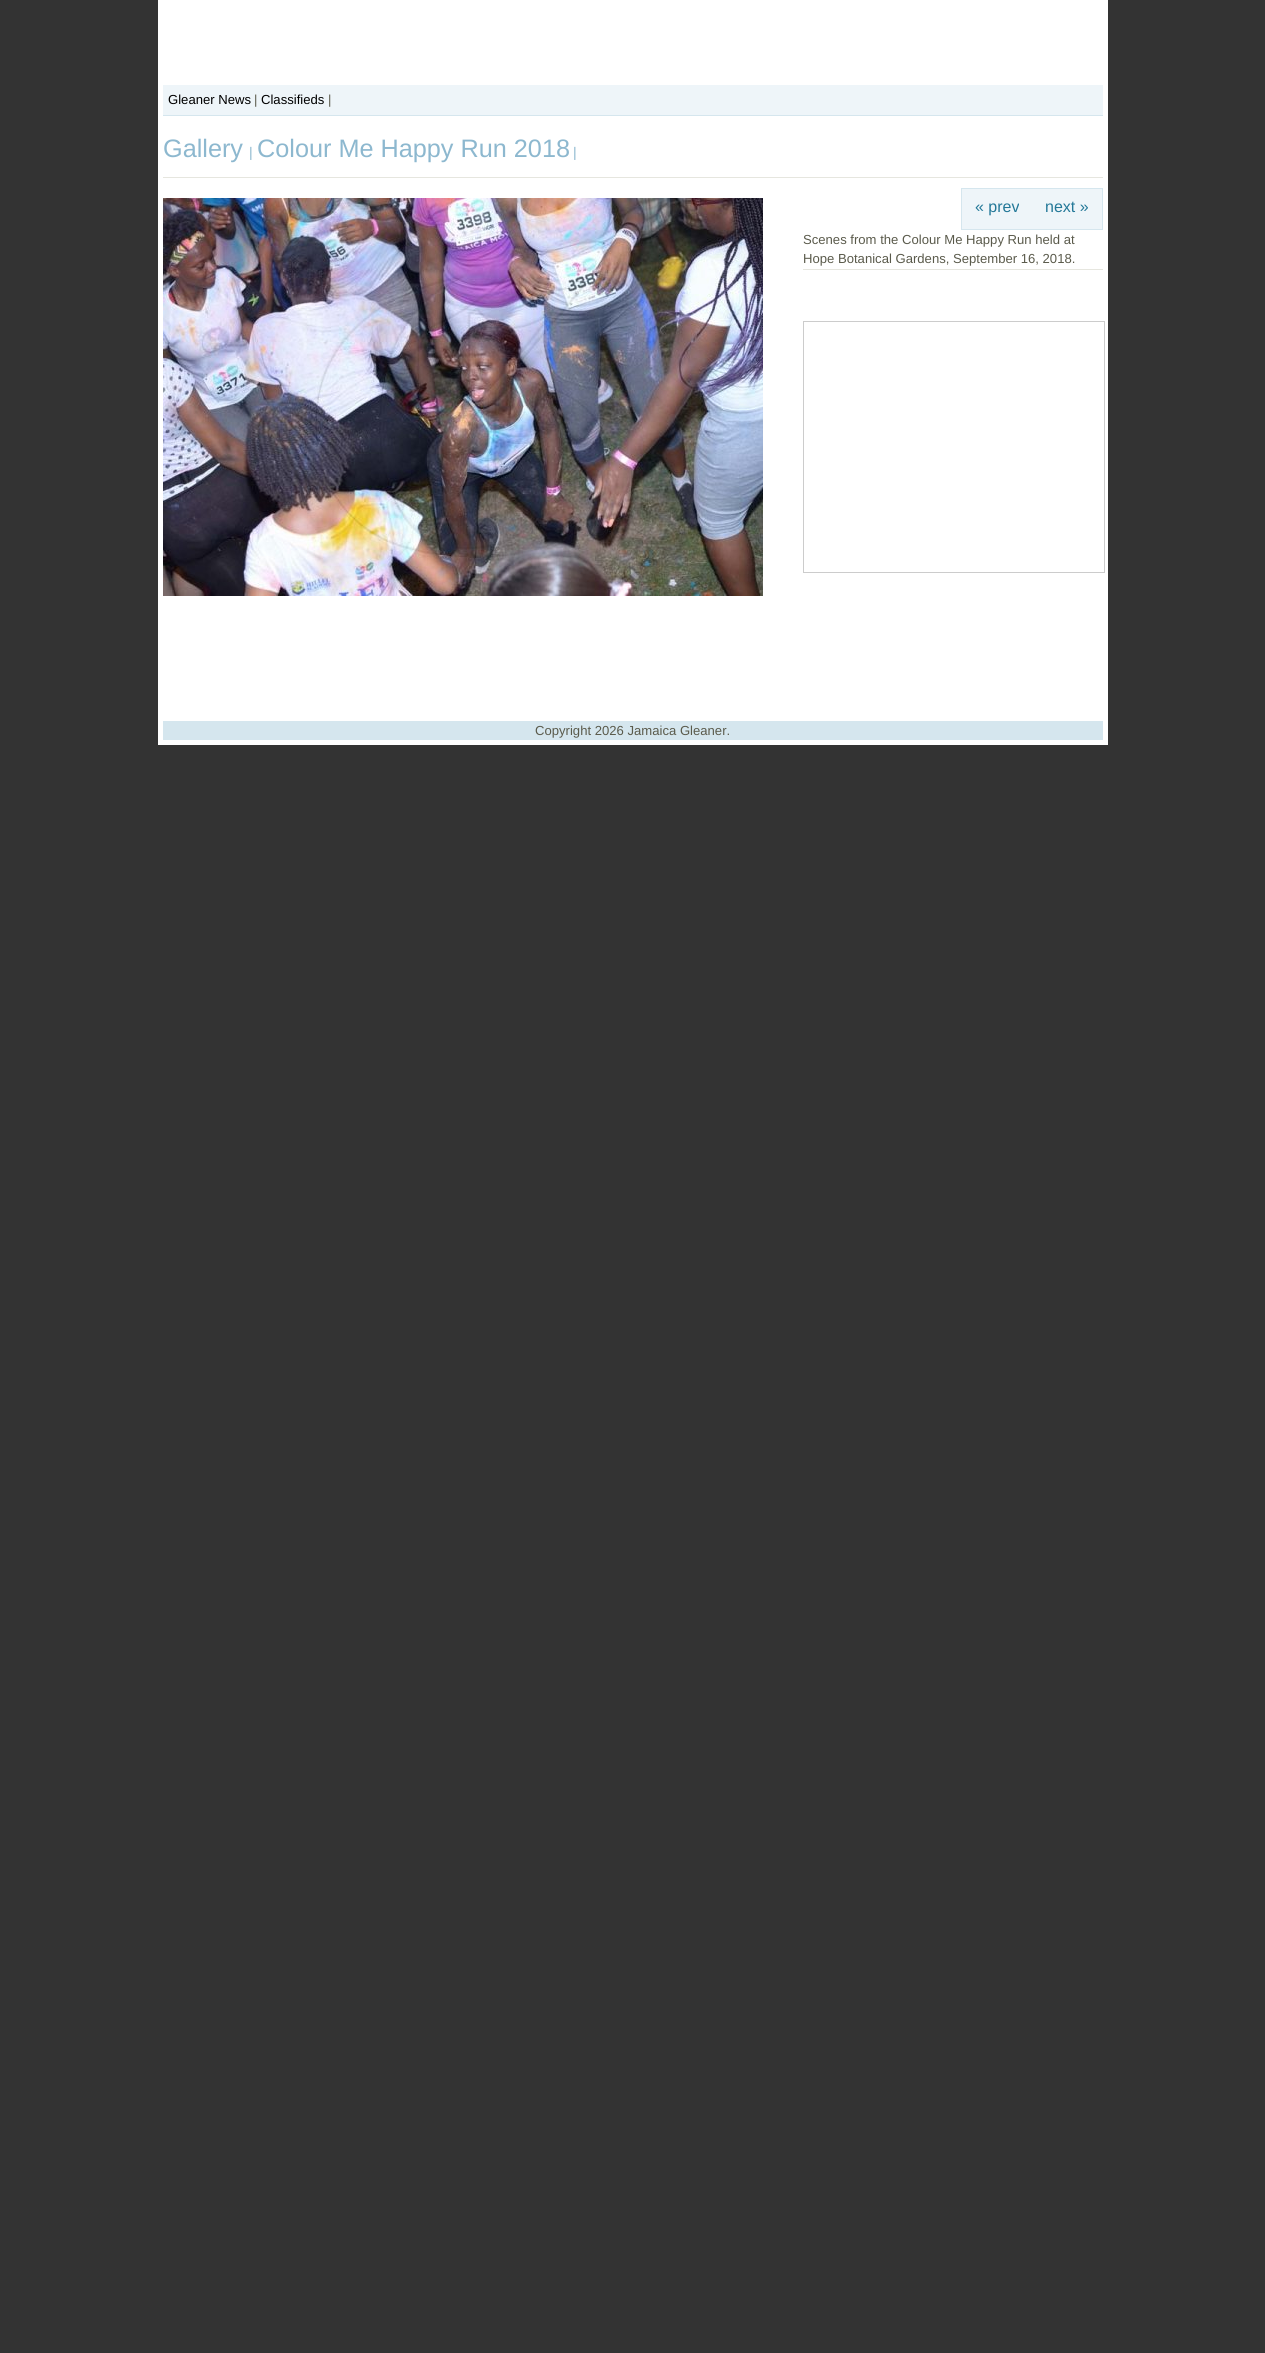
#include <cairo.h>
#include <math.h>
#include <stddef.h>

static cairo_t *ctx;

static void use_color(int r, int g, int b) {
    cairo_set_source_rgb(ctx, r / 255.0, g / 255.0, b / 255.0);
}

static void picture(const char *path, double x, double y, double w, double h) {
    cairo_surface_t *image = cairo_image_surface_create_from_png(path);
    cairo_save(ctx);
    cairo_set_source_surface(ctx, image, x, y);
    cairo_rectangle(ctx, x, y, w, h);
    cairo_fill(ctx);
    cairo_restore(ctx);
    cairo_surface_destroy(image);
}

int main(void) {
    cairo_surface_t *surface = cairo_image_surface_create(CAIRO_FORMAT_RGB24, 1265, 2353);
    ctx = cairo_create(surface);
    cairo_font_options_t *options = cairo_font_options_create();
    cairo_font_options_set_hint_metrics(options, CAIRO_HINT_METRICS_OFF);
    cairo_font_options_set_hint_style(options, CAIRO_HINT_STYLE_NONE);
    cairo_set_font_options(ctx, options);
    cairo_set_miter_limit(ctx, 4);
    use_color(51, 51, 51);
    cairo_paint(ctx);
    use_color(255, 255, 255);
    cairo_rectangle(ctx, 158, 0, 950, 745);
    cairo_fill(ctx);
    use_color(238, 245, 249);
    cairo_rectangle(ctx, 163, 85, 940, 30);
    cairo_fill(ctx);
    use_color(213, 230, 238);
    cairo_rectangle(ctx, 163, 115, 940, 1);
    cairo_fill(ctx);
    cairo_select_font_face(ctx, "Liberation Sans", CAIRO_FONT_SLANT_NORMAL, CAIRO_FONT_WEIGHT_NORMAL);
    cairo_set_font_size(ctx, 13.1);
    use_color(0, 0, 0);
    cairo_move_to(ctx, 168, 104);
    cairo_show_text(ctx, "Gleaner News");
    use_color(90, 90, 75);
    cairo_move_to(ctx, 254, 104);
    cairo_show_text(ctx, "|");
    use_color(0, 0, 0);
    cairo_move_to(ctx, 261, 104);
    cairo_show_text(ctx, "Classifieds");
    use_color(90, 90, 75);
    cairo_move_to(ctx, 328, 104);
    cairo_show_text(ctx, "|");
    use_color(230, 230, 223);
    cairo_rectangle(ctx, 163, 177, 940, 1);
    cairo_fill(ctx);
    cairo_set_font_size(ctx, 25.25);
    use_color(141, 184, 207);
    cairo_move_to(ctx, 163, 157);
    cairo_show_text(ctx, "Gallery");
    cairo_set_font_size(ctx, 14);
    cairo_move_to(ctx, 249, 157);
    cairo_show_text(ctx, "|");
    cairo_set_font_size(ctx, 25.25);
    cairo_move_to(ctx, 257, 157);
    cairo_show_text(ctx, "Colour Me Happy Run 2018");
    cairo_set_font_size(ctx, 14);
    cairo_move_to(ctx, 573, 157);
    cairo_show_text(ctx, "|");
    picture("img1.png", 163, 198, 600, 398);
    use_color(238, 245, 249);
    cairo_rectangle(ctx, 961.5, 188.5, 141, 41);
    cairo_fill_preserve(ctx);
    use_color(213, 230, 238);
    cairo_set_line_width(ctx, 1);
    cairo_stroke(ctx);
    cairo_set_font_size(ctx, 16);
    use_color(35, 120, 152);
    cairo_move_to(ctx, 975, 212);
    cairo_show_text(ctx, "« prev");
    cairo_move_to(ctx, 1045, 212);
    cairo_show_text(ctx, "next »");
    cairo_set_font_size(ctx, 13.1);
    use_color(90, 90, 75);
    cairo_move_to(ctx, 803, 244);
    cairo_show_text(ctx, "Scenes from the Colour Me Happy Run held at");
    cairo_move_to(ctx, 803, 263);
    cairo_show_text(ctx, "Hope Botanical Gardens, September 16, 2018.");
    use_color(230, 230, 223);
    cairo_rectangle(ctx, 803, 269, 300, 1);
    cairo_fill(ctx);
    cairo_rectangle(ctx, 803.5, 321.5, 301, 251);
    use_color(204, 204, 204);
    cairo_stroke(ctx);
    use_color(213, 230, 238);
    cairo_rectangle(ctx, 163, 721, 940, 19);
    cairo_fill(ctx);
    use_color(90, 90, 75);
    cairo_move_to(ctx, 535, 735);
    cairo_show_text(ctx, "Copyright 2026 Jamaica Gleaner.");
    cairo_surface_write_to_png(surface, "result.png");
    cairo_font_options_destroy(options);
    cairo_destroy(ctx);
    cairo_surface_destroy(surface);
    return 0;
}
